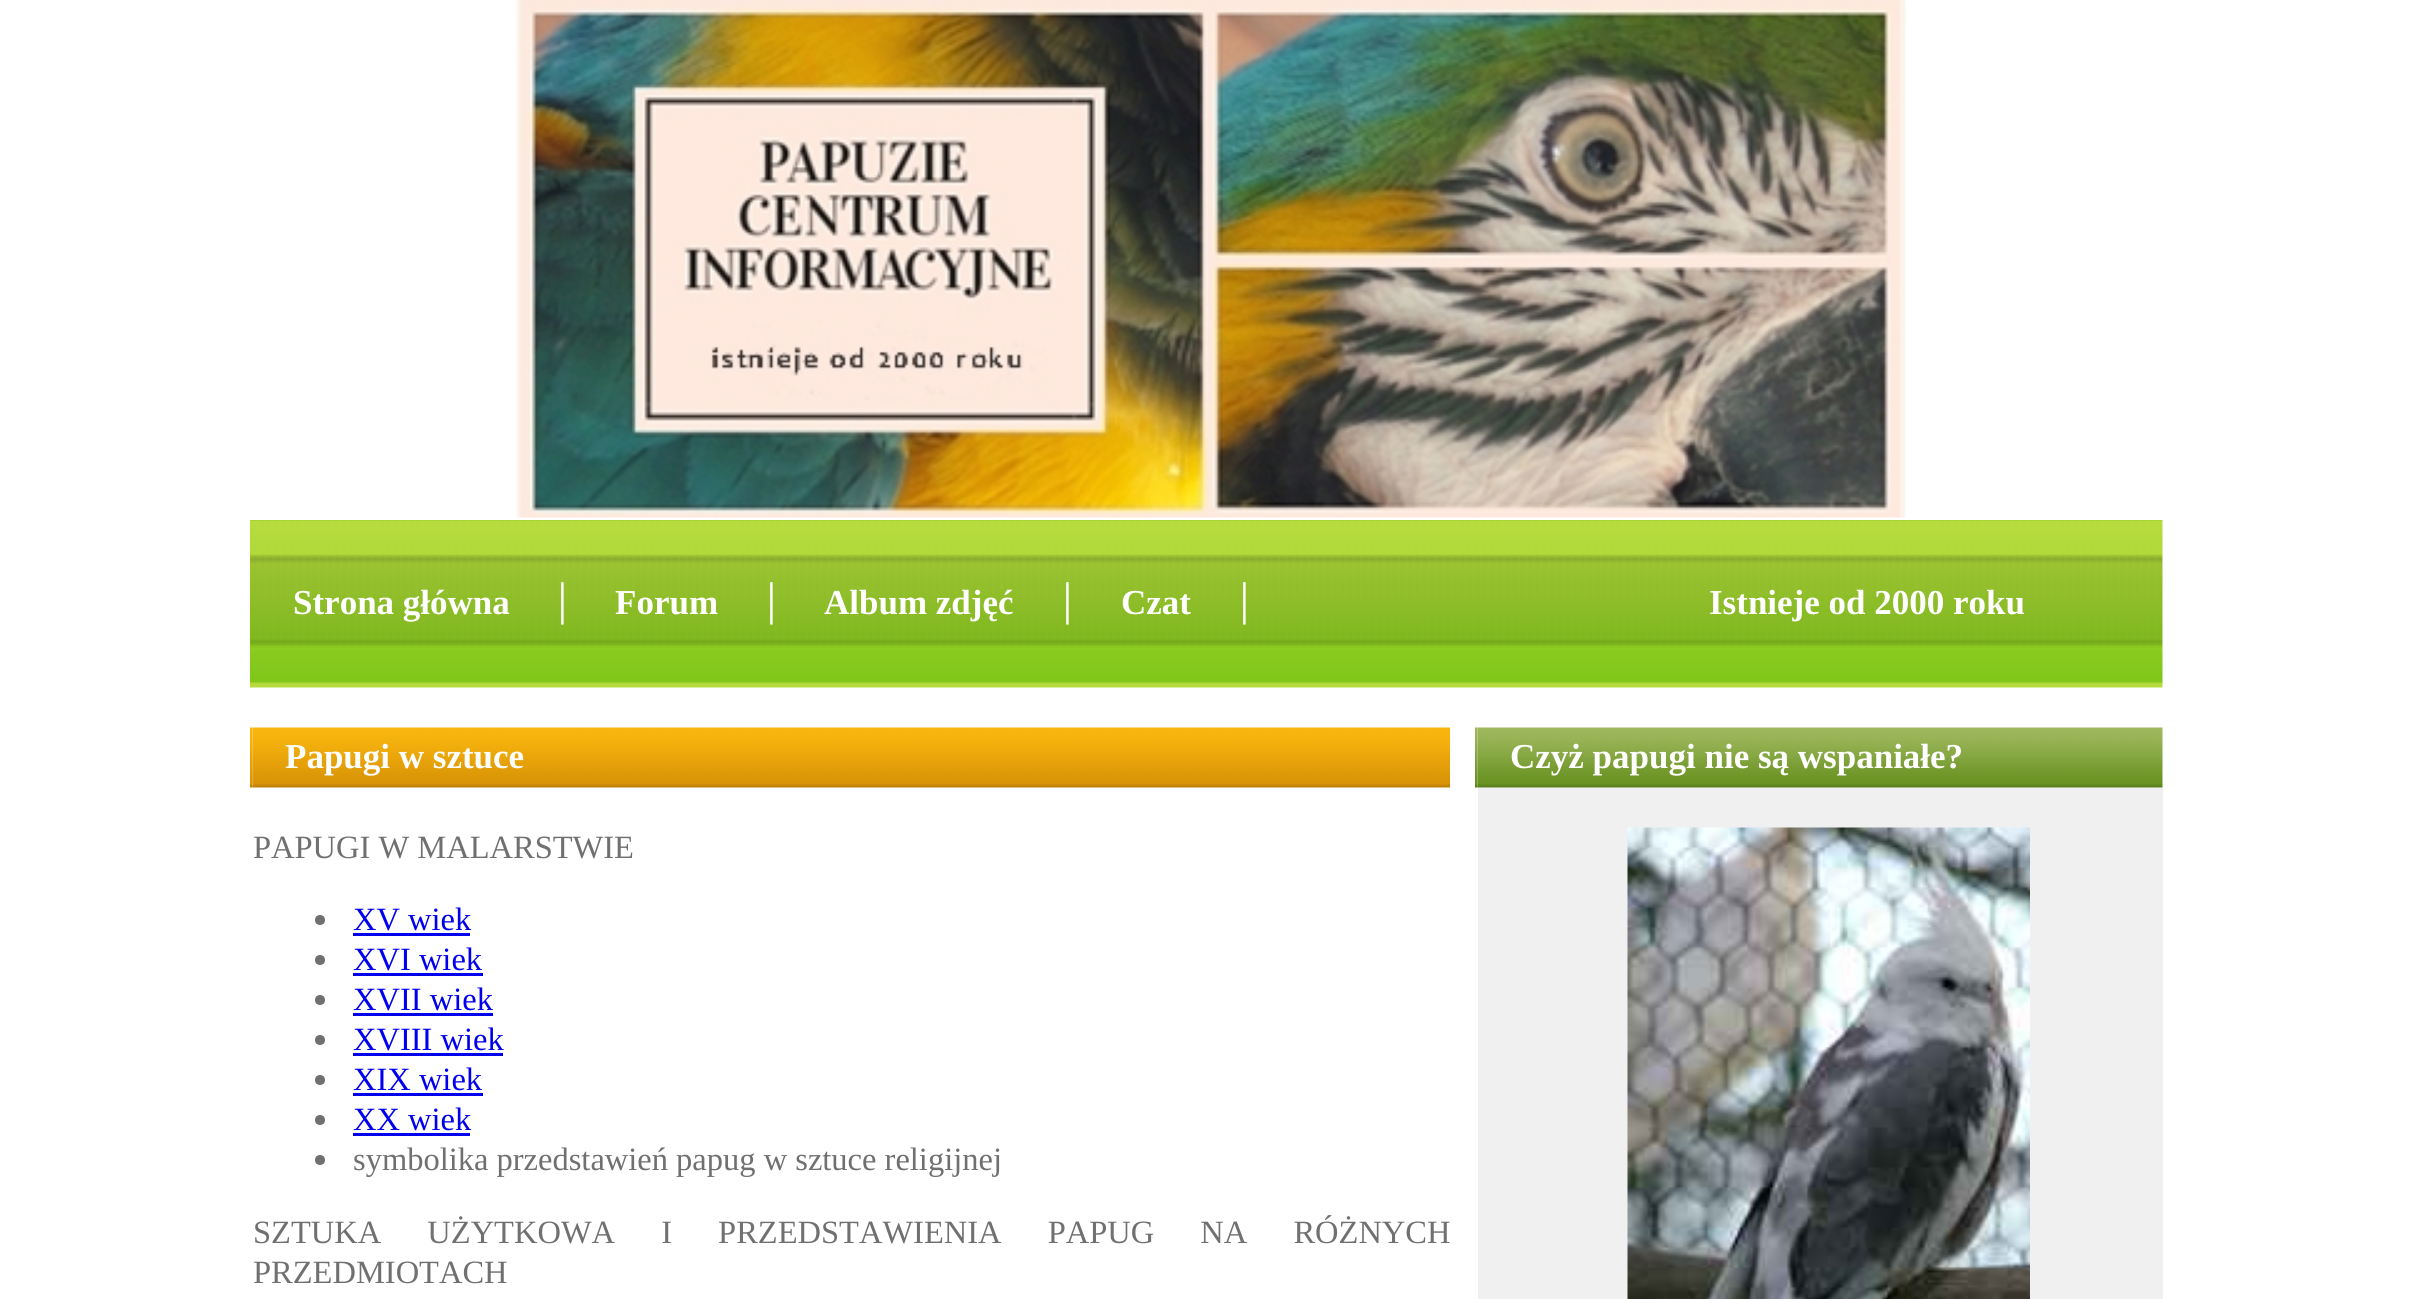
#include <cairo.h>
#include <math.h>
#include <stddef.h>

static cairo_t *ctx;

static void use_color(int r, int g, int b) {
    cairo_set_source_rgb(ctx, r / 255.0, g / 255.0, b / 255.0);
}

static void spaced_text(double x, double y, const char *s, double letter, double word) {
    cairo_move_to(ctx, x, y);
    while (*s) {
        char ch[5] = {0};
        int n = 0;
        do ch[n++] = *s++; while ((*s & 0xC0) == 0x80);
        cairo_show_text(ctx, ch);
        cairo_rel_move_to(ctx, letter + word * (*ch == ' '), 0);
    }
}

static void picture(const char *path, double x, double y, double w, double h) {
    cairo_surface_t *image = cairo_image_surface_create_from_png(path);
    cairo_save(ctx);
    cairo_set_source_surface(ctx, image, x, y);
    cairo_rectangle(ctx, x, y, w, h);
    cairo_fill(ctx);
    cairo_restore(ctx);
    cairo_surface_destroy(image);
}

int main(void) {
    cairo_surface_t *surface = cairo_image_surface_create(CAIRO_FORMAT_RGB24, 2411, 1299);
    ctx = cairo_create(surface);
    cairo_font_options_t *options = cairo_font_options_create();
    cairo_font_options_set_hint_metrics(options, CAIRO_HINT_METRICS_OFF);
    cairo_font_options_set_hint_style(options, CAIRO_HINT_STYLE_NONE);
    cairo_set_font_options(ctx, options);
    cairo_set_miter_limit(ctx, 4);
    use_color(255, 255, 255);
    cairo_paint(ctx);
    picture("img1.png", 515, 0, 1391, 518);
    picture("img2.png", 250, 520, 1913, 168);
    cairo_select_font_face(ctx, "Liberation Serif", CAIRO_FONT_SLANT_NORMAL, CAIRO_FONT_WEIGHT_BOLD);
    cairo_set_font_size(ctx, 35);
    use_color(255, 255, 255);
    cairo_move_to(ctx, 293, 614);
    cairo_show_text(ctx, "Strona główna");
    cairo_move_to(ctx, 550, 614);
    cairo_show_text(ctx, "│");
    cairo_move_to(ctx, 615, 614);
    cairo_show_text(ctx, "Forum");
    cairo_move_to(ctx, 759, 614);
    cairo_show_text(ctx, "│");
    cairo_move_to(ctx, 824, 614);
    cairo_show_text(ctx, "Album zdjęć");
    cairo_move_to(ctx, 1055, 614);
    cairo_show_text(ctx, "│");
    cairo_move_to(ctx, 1121, 614);
    cairo_show_text(ctx, "Czat");
    cairo_move_to(ctx, 1232, 614);
    cairo_show_text(ctx, "│");
    cairo_move_to(ctx, 1709, 614);
    cairo_show_text(ctx, "Istnieje od 2000 roku");
    picture("img3.png", 250, 727, 3, 61);
    picture("img4.png", 252, 727, 1198, 61);
    cairo_move_to(ctx, 285, 768);
    cairo_show_text(ctx, "Papugi w sztuce");
    cairo_select_font_face(ctx, "Liberation Serif", CAIRO_FONT_SLANT_NORMAL, CAIRO_FONT_WEIGHT_NORMAL);
    cairo_set_font_size(ctx, 32.5);
    use_color(112, 112, 112);
    cairo_move_to(ctx, 253, 858);
    cairo_show_text(ctx, "PAPUGI W MALARSTWIE");
    cairo_new_path(ctx);
    cairo_arc(ctx, 320, 920, 5, 0, 2 * M_PI);
    cairo_fill(ctx);
    use_color(0, 0, 238);
    cairo_move_to(ctx, 353, 930);
    cairo_show_text(ctx, "XV wiek");
    cairo_rectangle(ctx, 353, 933, 117, 3);
    cairo_fill(ctx);
    use_color(112, 112, 112);
    cairo_arc(ctx, 320, 960, 5, 0, 2 * M_PI);
    cairo_fill(ctx);
    use_color(0, 0, 238);
    cairo_move_to(ctx, 353, 970);
    cairo_show_text(ctx, "XVI wiek");
    cairo_rectangle(ctx, 353, 973, 130, 3);
    cairo_fill(ctx);
    use_color(112, 112, 112);
    cairo_arc(ctx, 320, 1000, 5, 0, 2 * M_PI);
    cairo_fill(ctx);
    use_color(0, 0, 238);
    cairo_move_to(ctx, 353, 1010);
    cairo_show_text(ctx, "XVII wiek");
    cairo_rectangle(ctx, 353, 1013, 140, 3);
    cairo_fill(ctx);
    use_color(112, 112, 112);
    cairo_arc(ctx, 320, 1040, 5, 0, 2 * M_PI);
    cairo_fill(ctx);
    use_color(0, 0, 238);
    cairo_move_to(ctx, 353, 1050);
    cairo_show_text(ctx, "XVIII wiek");
    cairo_rectangle(ctx, 353, 1053, 150, 3);
    cairo_fill(ctx);
    use_color(112, 112, 112);
    cairo_arc(ctx, 320, 1080, 5, 0, 2 * M_PI);
    cairo_fill(ctx);
    use_color(0, 0, 238);
    cairo_move_to(ctx, 353, 1090);
    cairo_show_text(ctx, "XIX wiek");
    cairo_rectangle(ctx, 353, 1093, 130, 3);
    cairo_fill(ctx);
    use_color(112, 112, 112);
    cairo_arc(ctx, 320, 1120, 5, 0, 2 * M_PI);
    cairo_fill(ctx);
    use_color(0, 0, 238);
    cairo_move_to(ctx, 353, 1130);
    cairo_show_text(ctx, "XX wiek");
    cairo_rectangle(ctx, 353, 1133, 117, 3);
    cairo_fill(ctx);
    use_color(112, 112, 112);
    cairo_arc(ctx, 320, 1160, 5, 0, 2 * M_PI);
    cairo_fill(ctx);
    cairo_move_to(ctx, 353, 1170);
    cairo_show_text(ctx, "symbolika przedstawień papug w sztuce religijnej");
    spaced_text(253, 1243, "SZTUKA UŻYTKOWA I PRZEDSTAWIENIA PAPUG NA RÓŻNYCH", 0, 38);
    cairo_move_to(ctx, 253, 1283);
    cairo_show_text(ctx, "PRZEDMIOTACH");
    picture("img5.png", 1475, 727, 3, 61);
    picture("img6.png", 1477, 727, 686, 61);
    cairo_select_font_face(ctx, "Liberation Serif", CAIRO_FONT_SLANT_NORMAL, CAIRO_FONT_WEIGHT_BOLD);
    cairo_set_font_size(ctx, 35);
    use_color(255, 255, 255);
    cairo_move_to(ctx, 1510, 768);
    cairo_show_text(ctx, "Czyż papugi nie są wspaniałe?");
    use_color(240, 240, 240);
    cairo_rectangle(ctx, 1478, 788, 685, 511);
    cairo_fill(ctx);
    picture("img7.png", 1627, 827, 403, 472);
    cairo_surface_write_to_png(surface, "result.png");
    cairo_font_options_destroy(options);
    cairo_destroy(ctx);
    cairo_surface_destroy(surface);
    return 0;
}
